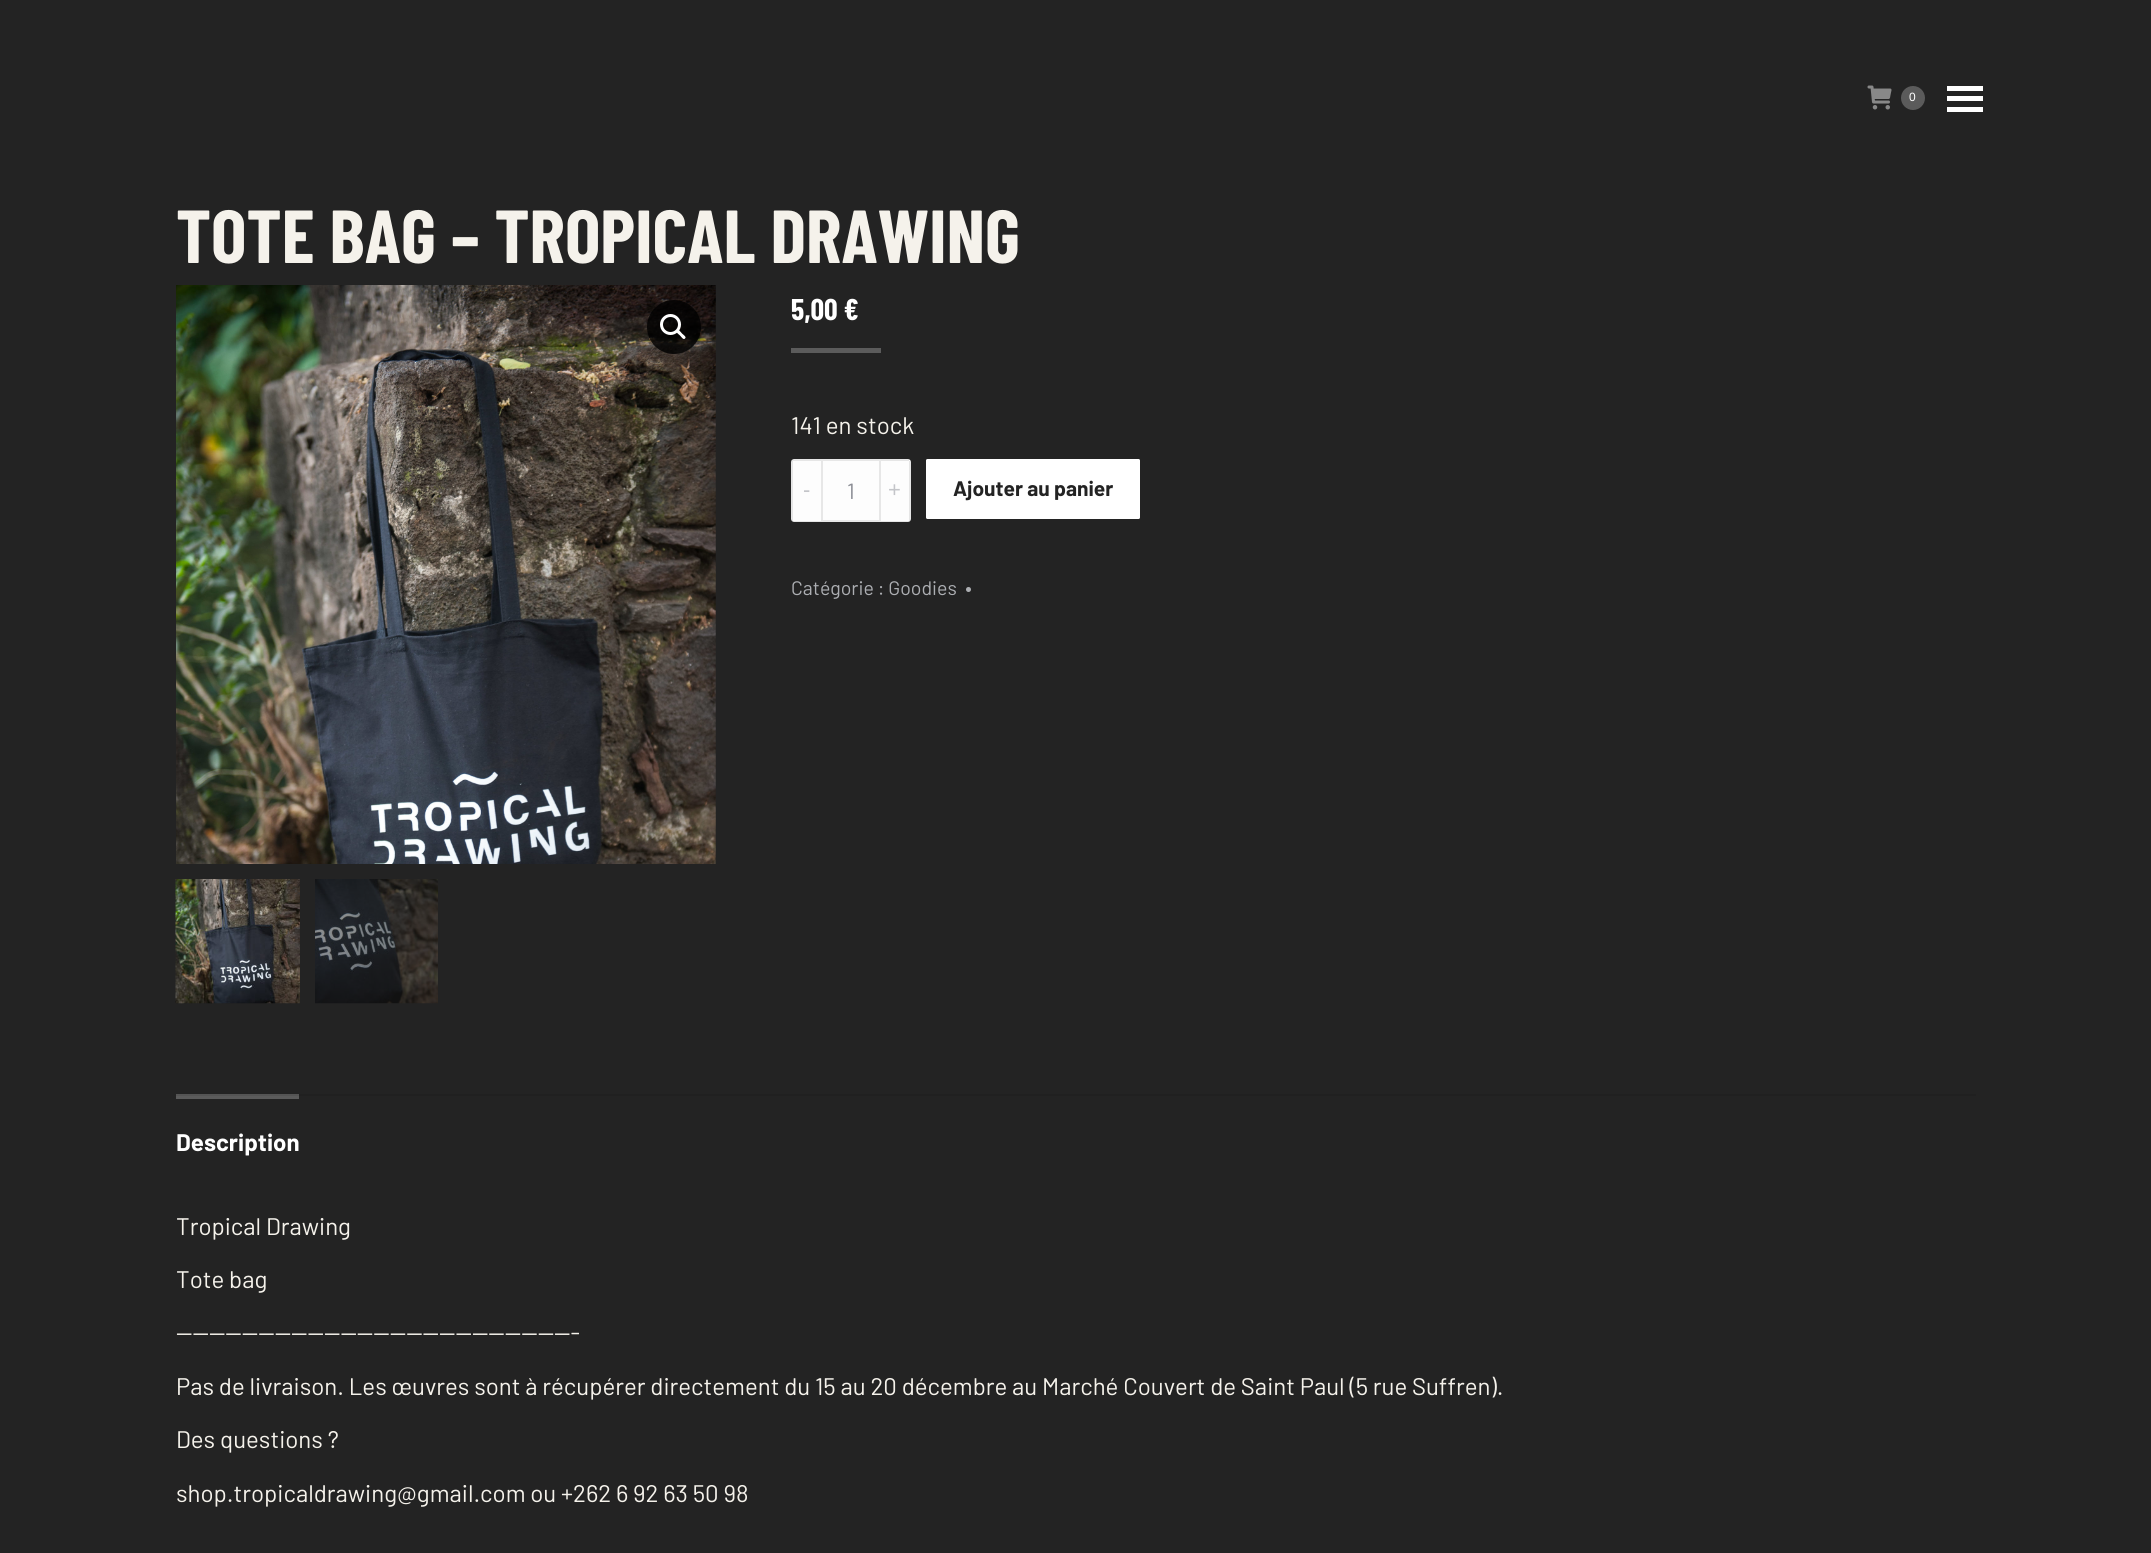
#include <cairo.h>
#include <math.h>
#include <stddef.h>

static cairo_t *ctx;

static void use_color(int r, int g, int b) {
    cairo_set_source_rgb(ctx, r / 255.0, g / 255.0, b / 255.0);
}

static void round_rect(double x, double y, double w, double h, double r) {
    cairo_new_sub_path(ctx);
    cairo_arc(ctx, x + w - r, y + h - r, r, 0, M_PI / 2);
    cairo_arc(ctx, x + r, y + h - r, r, M_PI / 2, M_PI);
    cairo_arc(ctx, x + r, y + r, r, M_PI, 1.5 * M_PI);
    cairo_arc(ctx, x + w - r, y + r, r, 1.5 * M_PI, 2 * M_PI);
    cairo_close_path(ctx);
}

static void picture(const char *path, double x, double y, double w, double h) {
    cairo_surface_t *image = cairo_image_surface_create_from_png(path);
    cairo_save(ctx);
    cairo_set_source_surface(ctx, image, x, y);
    cairo_rectangle(ctx, x, y, w, h);
    cairo_fill(ctx);
    cairo_restore(ctx);
    cairo_surface_destroy(image);
}

int main(void) {
    cairo_surface_t *surface = cairo_image_surface_create(CAIRO_FORMAT_RGB24, 2151, 1553);
    ctx = cairo_create(surface);
    cairo_font_options_t *options = cairo_font_options_create();
    cairo_font_options_set_hint_metrics(options, CAIRO_HINT_METRICS_OFF);
    cairo_font_options_set_hint_style(options, CAIRO_HINT_STYLE_NONE);
    cairo_set_font_options(ctx, options);
    cairo_set_miter_limit(ctx, 4);
    use_color(35, 35, 35);
    cairo_paint(ctx);
    use_color(32, 32, 32);
    cairo_rectangle(ctx, 299, 1094, 1677, 2);
    cairo_fill(ctx);
    picture("img1.png", 1867, 85, 25, 25);
    use_color(91, 91, 91);
    cairo_arc(ctx, 1913, 98, 12, 0, 2 * M_PI);
    cairo_fill(ctx);
    cairo_select_font_face(ctx, "Liberation Sans", CAIRO_FONT_SLANT_NORMAL, CAIRO_FONT_WEIGHT_NORMAL);
    cairo_set_font_size(ctx, 12);
    use_color(255, 255, 255);
    cairo_move_to(ctx, 1909, 101);
    cairo_show_text(ctx, "0");
    cairo_rectangle(ctx, 1947, 86, 36, 5);
    cairo_fill(ctx);
    cairo_rectangle(ctx, 1947, 96, 36, 5);
    cairo_fill(ctx);
    cairo_rectangle(ctx, 1947, 107, 36, 5);
    cairo_fill(ctx);
    cairo_select_font_face(ctx, "Barlow Condensed", CAIRO_FONT_SLANT_NORMAL, CAIRO_FONT_WEIGHT_BOLD);
    cairo_set_font_size(ctx, 75);
    use_color(245, 242, 235);
    cairo_move_to(ctx, 176, 263);
    cairo_show_text(ctx, "TOTE BAG – TROPICAL DRAWING");
    picture("img2.png", 176, 285, 540, 579);
    cairo_set_source_rgba(ctx, 0, 0, 0, 0.8);
    cairo_arc(ctx, 674, 327, 27, 0, 2 * M_PI);
    cairo_fill(ctx);
    cairo_arc(ctx, 670.5, 324.5, 9, 0, 2 * M_PI);
    use_color(255, 255, 255);
    cairo_set_line_width(ctx, 3);
    cairo_stroke(ctx);
    cairo_new_path(ctx);
    cairo_move_to(ctx, 677, 330.5);
    cairo_curve_to(ctx, 678.5, 328.5, 681, 332.5, 682, 333.5);
    cairo_curve_to(ctx, 683, 334.5, 687, 337, 685, 338.5);
    cairo_curve_to(ctx, 683.5, 340.5, 681, 336.5, 680, 335.5);
    cairo_curve_to(ctx, 679, 334.5, 675, 332, 677, 330.5);
    cairo_close_path(ctx);
    cairo_fill(ctx);
    picture("img3.png", 175, 879, 125, 125);
    picture("img4.png", 315, 879, 123, 125);
    cairo_set_font_size(ctx, 30);
    cairo_move_to(ctx, 791, 320);
    cairo_show_text(ctx, "5,00 €");
    use_color(91, 91, 91);
    cairo_rectangle(ctx, 791, 348, 90, 5);
    cairo_fill(ctx);
    cairo_select_font_face(ctx, "Barlow", CAIRO_FONT_SLANT_NORMAL, CAIRO_FONT_WEIGHT_NORMAL);
    cairo_set_font_size(ctx, 24);
    use_color(245, 242, 235);
    cairo_move_to(ctx, 791, 434);
    cairo_show_text(ctx, "141 en stock");
    use_color(253, 253, 253);
    cairo_new_path(ctx);
    cairo_move_to(ctx, 794, 459);
    cairo_line_to(ctx, 821, 459);
    cairo_line_to(ctx, 821, 522);
    cairo_line_to(ctx, 794, 522);
    cairo_curve_to(ctx, 792.5, 522, 791, 520.5, 791, 519);
    cairo_line_to(ctx, 791, 462);
    cairo_curve_to(ctx, 791, 460.5, 792.5, 459, 794, 459);
    cairo_close_path(ctx);
    cairo_fill(ctx);
    cairo_set_source_rgba(ctx, 0.2, 0.2, 0.2, 0.11);
    cairo_rectangle(ctx, 792, 459, 29, 2);
    cairo_fill(ctx);
    cairo_rectangle(ctx, 792, 521, 29, 1);
    cairo_fill(ctx);
    cairo_rectangle(ctx, 791, 461, 2, 60);
    cairo_fill(ctx);
    cairo_select_font_face(ctx, "Liberation Sans", CAIRO_FONT_SLANT_NORMAL, CAIRO_FONT_WEIGHT_NORMAL);
    cairo_set_font_size(ctx, 22);
    use_color(196, 197, 201);
    cairo_move_to(ctx, 803, 497);
    cairo_show_text(ctx, "-");
    use_color(253, 253, 253);
    cairo_rectangle(ctx, 822, 460, 58, 61);
    cairo_fill_preserve(ctx);
    use_color(231, 231, 231);
    cairo_set_line_width(ctx, 2);
    cairo_stroke(ctx);
    cairo_select_font_face(ctx, "Barlow", CAIRO_FONT_SLANT_NORMAL, CAIRO_FONT_WEIGHT_NORMAL);
    use_color(139, 141, 148);
    cairo_move_to(ctx, 847, 499);
    cairo_show_text(ctx, "1");
    use_color(253, 253, 253);
    cairo_new_path(ctx);
    cairo_move_to(ctx, 881, 459);
    cairo_line_to(ctx, 908, 459);
    cairo_curve_to(ctx, 909.5, 459, 911, 460.5, 911, 462);
    cairo_line_to(ctx, 911, 519);
    cairo_curve_to(ctx, 911, 520.5, 909.5, 522, 908, 522);
    cairo_line_to(ctx, 881, 522);
    cairo_close_path(ctx);
    cairo_fill(ctx);
    cairo_set_source_rgba(ctx, 0.2, 0.2, 0.2, 0.11);
    cairo_rectangle(ctx, 881, 459, 28, 2);
    cairo_fill(ctx);
    cairo_rectangle(ctx, 909, 461, 2, 60);
    cairo_fill(ctx);
    cairo_rectangle(ctx, 881, 521, 28, 1);
    cairo_fill(ctx);
    cairo_select_font_face(ctx, "Liberation Sans", CAIRO_FONT_SLANT_NORMAL, CAIRO_FONT_WEIGHT_NORMAL);
    use_color(196, 197, 201);
    cairo_move_to(ctx, 888, 497);
    cairo_show_text(ctx, "+");
    use_color(255, 255, 255);
    round_rect(926, 459, 214, 60, 1.5);
    cairo_fill(ctx);
    cairo_select_font_face(ctx, "Barlow", CAIRO_FONT_SLANT_NORMAL, CAIRO_FONT_WEIGHT_BOLD);
    cairo_set_font_size(ctx, 21);
    use_color(35, 35, 35);
    cairo_move_to(ctx, 953, 496);
    cairo_show_text(ctx, "Ajouter au panier");
    cairo_select_font_face(ctx, "Barlow", CAIRO_FONT_SLANT_NORMAL, CAIRO_FONT_WEIGHT_NORMAL);
    cairo_set_font_size(ctx, 19.5);
    use_color(173, 175, 179);
    cairo_move_to(ctx, 791, 595);
    cairo_show_text(ctx, "Catégorie : Goodies");
    cairo_new_path(ctx);
    cairo_arc(ctx, 968.5, 589.5, 2.5, 0, 2 * M_PI);
    cairo_fill(ctx);
    use_color(91, 91, 91);
    cairo_rectangle(ctx, 176, 1096, 123, 3);
    cairo_fill(ctx);
    use_color(84, 84, 84);
    cairo_rectangle(ctx, 176, 1094, 123, 2);
    cairo_fill(ctx);
    cairo_select_font_face(ctx, "Barlow", CAIRO_FONT_SLANT_NORMAL, CAIRO_FONT_WEIGHT_BOLD);
    cairo_set_font_size(ctx, 24);
    use_color(255, 255, 255);
    cairo_move_to(ctx, 176, 1151);
    cairo_show_text(ctx, "Description");
    cairo_select_font_face(ctx, "Barlow", CAIRO_FONT_SLANT_NORMAL, CAIRO_FONT_WEIGHT_NORMAL);
    use_color(245, 242, 235);
    cairo_move_to(ctx, 176, 1235);
    cairo_show_text(ctx, "Tropical Drawing");
    cairo_move_to(ctx, 176, 1288);
    cairo_show_text(ctx, "Tote bag");
    cairo_move_to(ctx, 176, 1341);
    cairo_show_text(ctx, "————————————————————————-");
    cairo_move_to(ctx, 176, 1395);
    cairo_show_text(ctx, "Pas de livraison. Les œuvres sont à récupérer directement du 15 au 20 décembre au Marché Couvert de Saint Paul (5 rue Suffren).");
    cairo_move_to(ctx, 176, 1448);
    cairo_show_text(ctx, "Des questions ?");
    cairo_move_to(ctx, 176, 1502);
    cairo_show_text(ctx, "shop.tropicaldrawing@gmail.com ou +262 6 92 63 50 98");
    cairo_surface_write_to_png(surface, "result.png");
    cairo_font_options_destroy(options);
    cairo_destroy(ctx);
    cairo_surface_destroy(surface);
    return 0;
}
